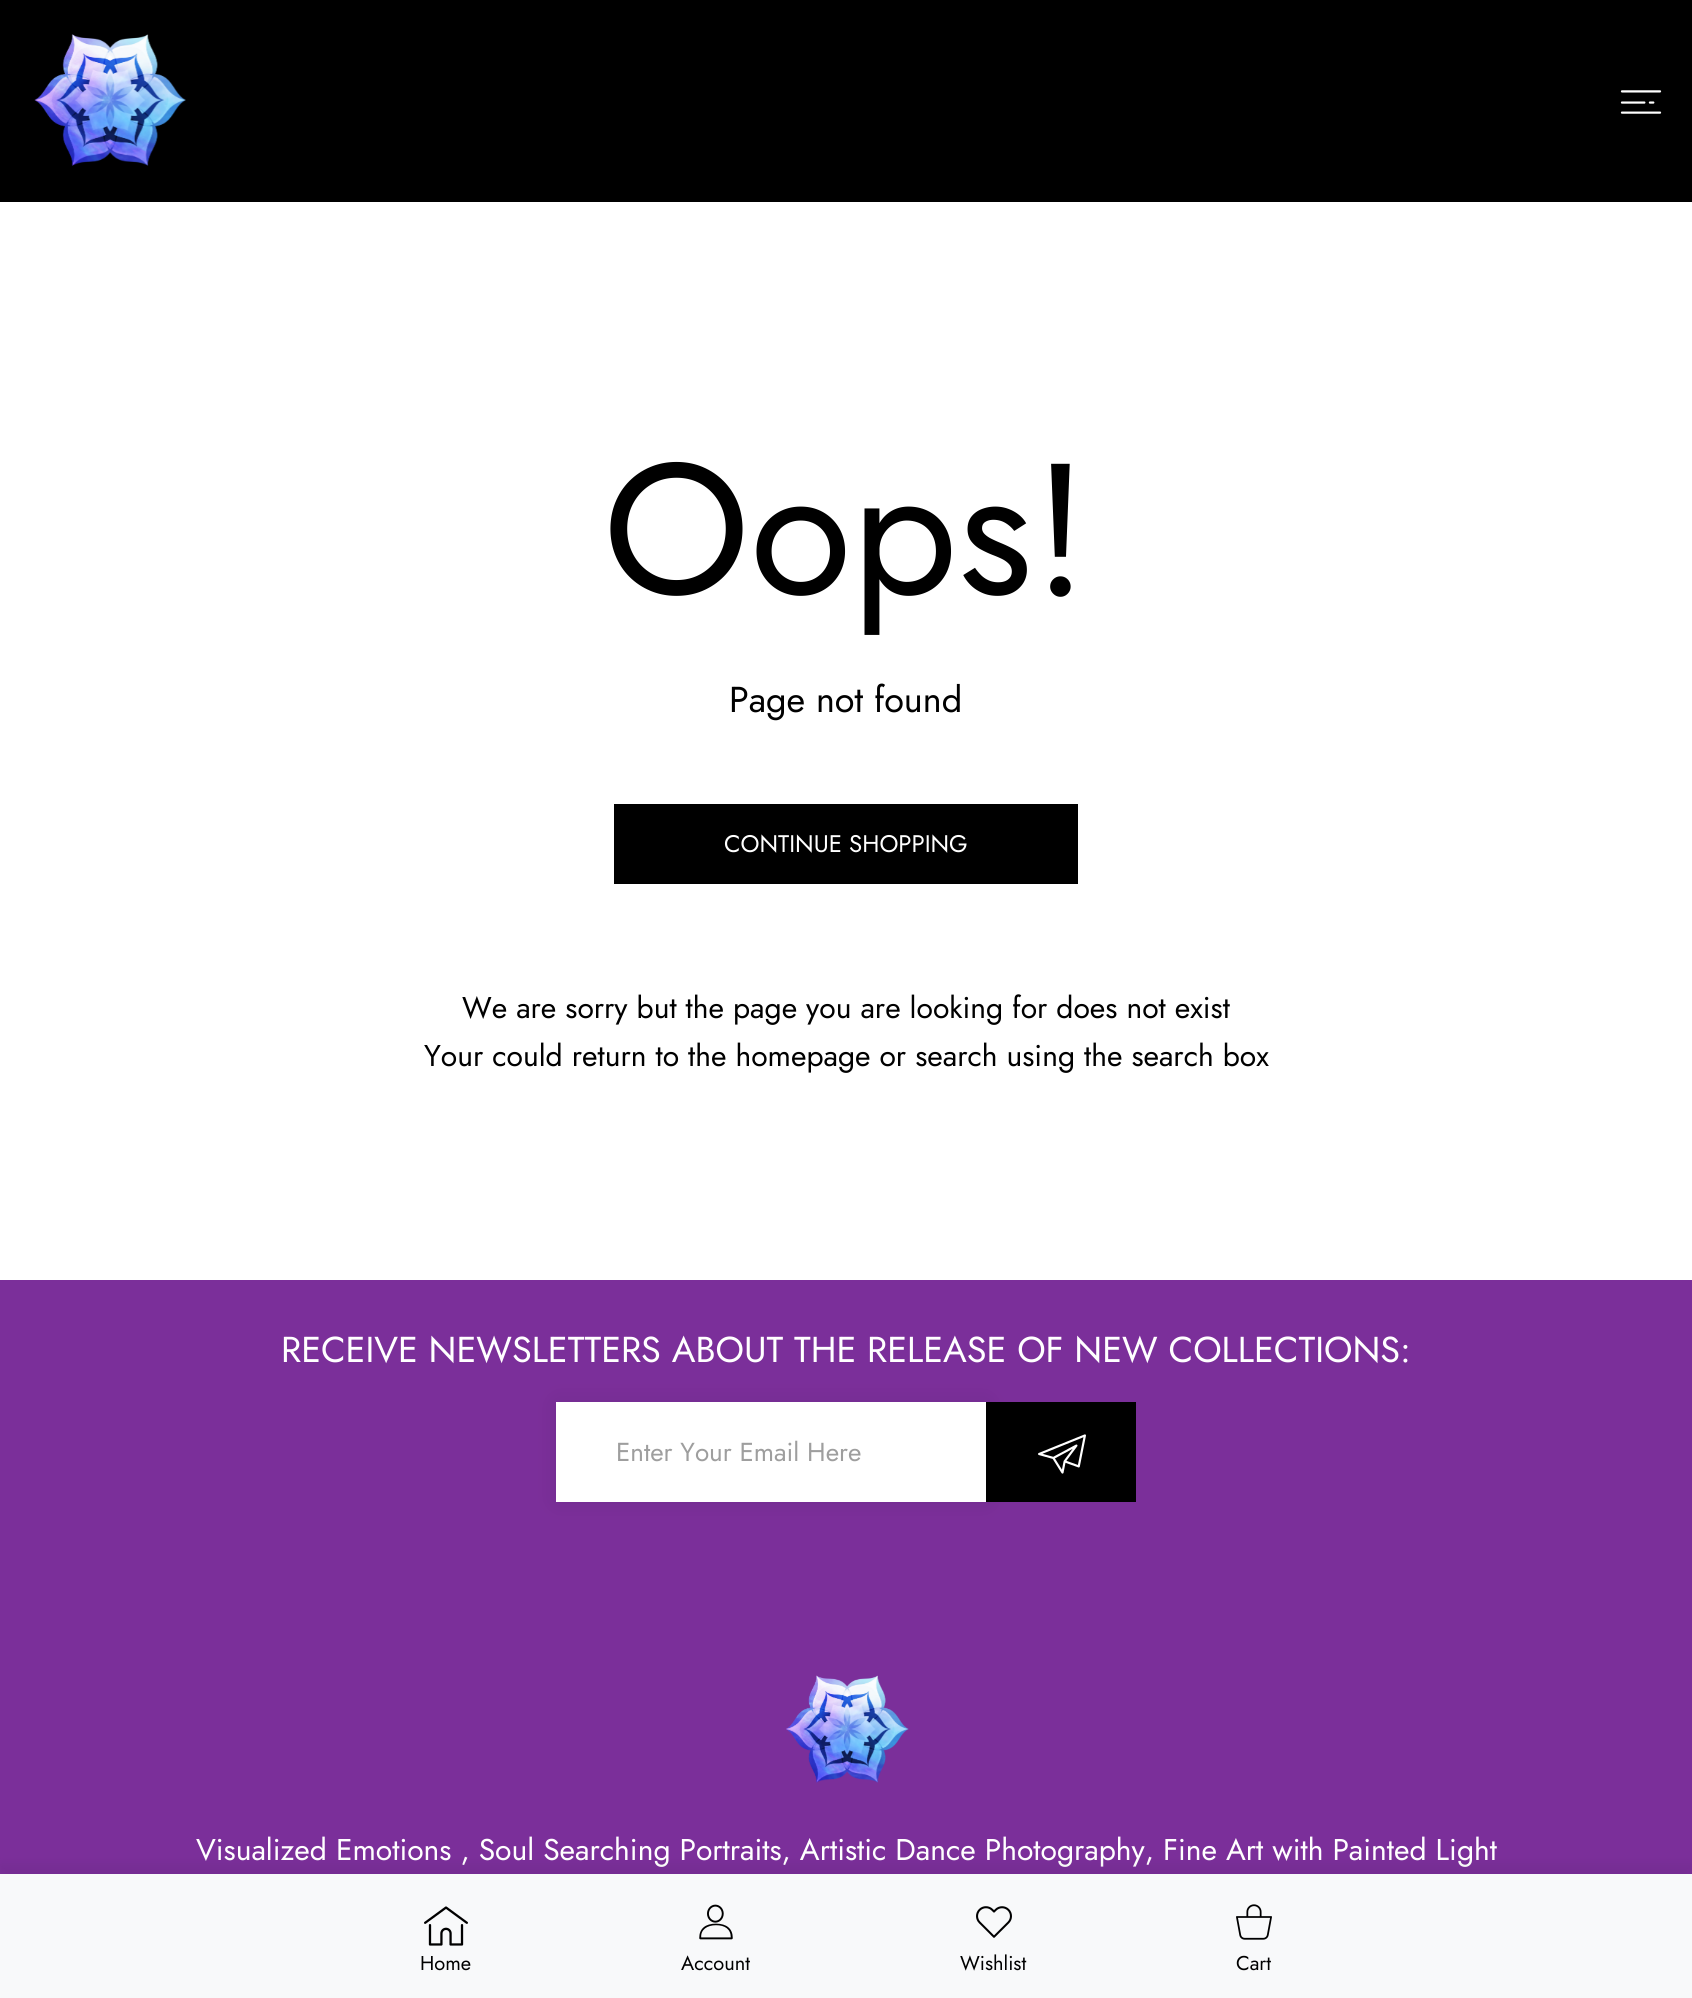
#include <cairo.h>
#include <math.h>
#include <stddef.h>

static cairo_t *ctx;

static void use_color(int r, int g, int b) {
    cairo_set_source_rgb(ctx, r / 255.0, g / 255.0, b / 255.0);
}

static void round_rect(double x, double y, double w, double h, double r) {
    cairo_new_sub_path(ctx);
    cairo_arc(ctx, x + w - r, y + h - r, r, 0, M_PI / 2);
    cairo_arc(ctx, x + r, y + h - r, r, M_PI / 2, M_PI);
    cairo_arc(ctx, x + r, y + r, r, M_PI, 1.5 * M_PI);
    cairo_arc(ctx, x + w - r, y + r, r, 1.5 * M_PI, 2 * M_PI);
    cairo_close_path(ctx);
}

static void shadow(double x, double y, double w, double h, double r, double blur, double alpha) {
    cairo_push_group_with_content(ctx, CAIRO_CONTENT_ALPHA);
    cairo_set_operator(ctx, CAIRO_OPERATOR_SOURCE);
    for (int i = 15; i >= -15 && fmin(w, h) + blur * i / 3 > 0; i -= 2) {
        double e = blur * i / 6;
        cairo_set_source_rgba(ctx, 0, 0, 0, alpha * erfc((i - 1) / 8.5) / 2);
        round_rect(x - e, y - e, w + 2 * e, h + 2 * e, fmax(0, fmin(r + e + blur * .6, fmin(w, h) / 2 + e)));
        cairo_fill(ctx);
    }
    cairo_pattern_t *soft = cairo_pop_group(ctx);
    cairo_mask(ctx, soft);
    cairo_pattern_destroy(soft);
}

static void picture(const char *path, double x, double y, double w, double h) {
    cairo_surface_t *image = cairo_image_surface_create_from_png(path);
    cairo_save(ctx);
    cairo_set_source_surface(ctx, image, x, y);
    cairo_rectangle(ctx, x, y, w, h);
    cairo_fill(ctx);
    cairo_restore(ctx);
    cairo_surface_destroy(image);
}

int main(void) {
    cairo_surface_t *surface = cairo_image_surface_create(CAIRO_FORMAT_RGB24, 1692, 1998);
    ctx = cairo_create(surface);
    cairo_font_options_t *options = cairo_font_options_create();
    cairo_font_options_set_hint_metrics(options, CAIRO_HINT_METRICS_OFF);
    cairo_font_options_set_hint_style(options, CAIRO_HINT_STYLE_NONE);
    cairo_set_font_options(ctx, options);
    cairo_set_miter_limit(ctx, 4);
    use_color(255, 255, 255);
    cairo_paint(ctx);
    use_color(0, 0, 0);
    cairo_rectangle(ctx, 0, 0, 1692, 202);
    cairo_fill(ctx);
    picture("img1.png", 34, 34, 152, 132);
    picture("img2.png", 1620, 90, 42, 24);
    cairo_select_font_face(ctx, "Jost", CAIRO_FONT_SLANT_NORMAL, CAIRO_FONT_WEIGHT_NORMAL);
    cairo_set_font_size(ctx, 186);
    cairo_move_to(ctx, 603, 594);
    cairo_show_text(ctx, "Oops!");
    cairo_set_font_size(ctx, 36);
    cairo_move_to(ctx, 729, 712);
    cairo_show_text(ctx, "Page not found");
    cairo_rectangle(ctx, 614, 804, 464, 80);
    cairo_fill(ctx);
    cairo_set_font_size(ctx, 24);
    use_color(255, 255, 255);
    cairo_move_to(ctx, 724, 852);
    cairo_show_text(ctx, "CONTINUE SHOPPING");
    cairo_set_font_size(ctx, 30);
    use_color(0, 0, 0);
    cairo_move_to(ctx, 462, 1018);
    cairo_show_text(ctx, "We are sorry but the page you are looking for does not exist");
    cairo_move_to(ctx, 424, 1066);
    cairo_show_text(ctx, "Your could return to the homepage or search using the search box");
    use_color(123, 47, 154);
    cairo_rectangle(ctx, 0, 1280, 1692, 594);
    cairo_fill(ctx);
    cairo_set_font_size(ctx, 36);
    use_color(255, 255, 255);
    cairo_move_to(ctx, 281, 1362);
    cairo_show_text(ctx, "RECEIVE NEWSLETTERS ABOUT THE RELEASE OF NEW COLLECTIONS:");
    use_color(0, 0, 0);
    shadow(556, 1402, 432, 100, 0, 12, 0.08);
    use_color(255, 255, 255);
    cairo_rectangle(ctx, 556, 1402, 430, 100);
    cairo_fill(ctx);
    cairo_set_font_size(ctx, 26);
    use_color(158, 158, 158);
    cairo_move_to(ctx, 616, 1461);
    cairo_show_text(ctx, "Enter Your Email Here");
    use_color(0, 0, 0);
    cairo_rectangle(ctx, 986, 1402, 150, 100);
    cairo_fill(ctx);
    picture("img3.png", 1038, 1434, 48, 40);
    picture("img4.png", 786, 1675, 123, 108);
    cairo_set_font_size(ctx, 30);
    use_color(255, 255, 255);
    cairo_move_to(ctx, 196, 1860);
    cairo_show_text(ctx, "Visualized Emotions , Soul Searching Portraits, Artistic Dance Photography, Fine Art with Painted Light");
    use_color(0, 0, 0);
    shadow(0, 1864, 1692, 124, 0, 5, 0.05);
    use_color(248, 249, 250);
    cairo_rectangle(ctx, 0, 1874, 1692, 124);
    cairo_fill(ctx);
    picture("img5.png", 424, 1906, 44, 40);
    cairo_set_font_size(ctx, 20);
    use_color(0, 0, 0);
    cairo_move_to(ctx, 420, 1970);
    cairo_show_text(ctx, "Home");
    picture("img6.png", 699, 1904, 34, 36);
    cairo_move_to(ctx, 681, 1970);
    cairo_show_text(ctx, "Account");
    picture("img7.png", 976, 1906, 36, 32);
    cairo_move_to(ctx, 960, 1970);
    cairo_show_text(ctx, "Wishlist");
    picture("img8.png", 1236, 1904, 36, 36);
    cairo_move_to(ctx, 1236, 1970);
    cairo_show_text(ctx, "Cart");
    cairo_surface_write_to_png(surface, "result.png");
    cairo_font_options_destroy(options);
    cairo_destroy(ctx);
    cairo_surface_destroy(surface);
    return 0;
}
